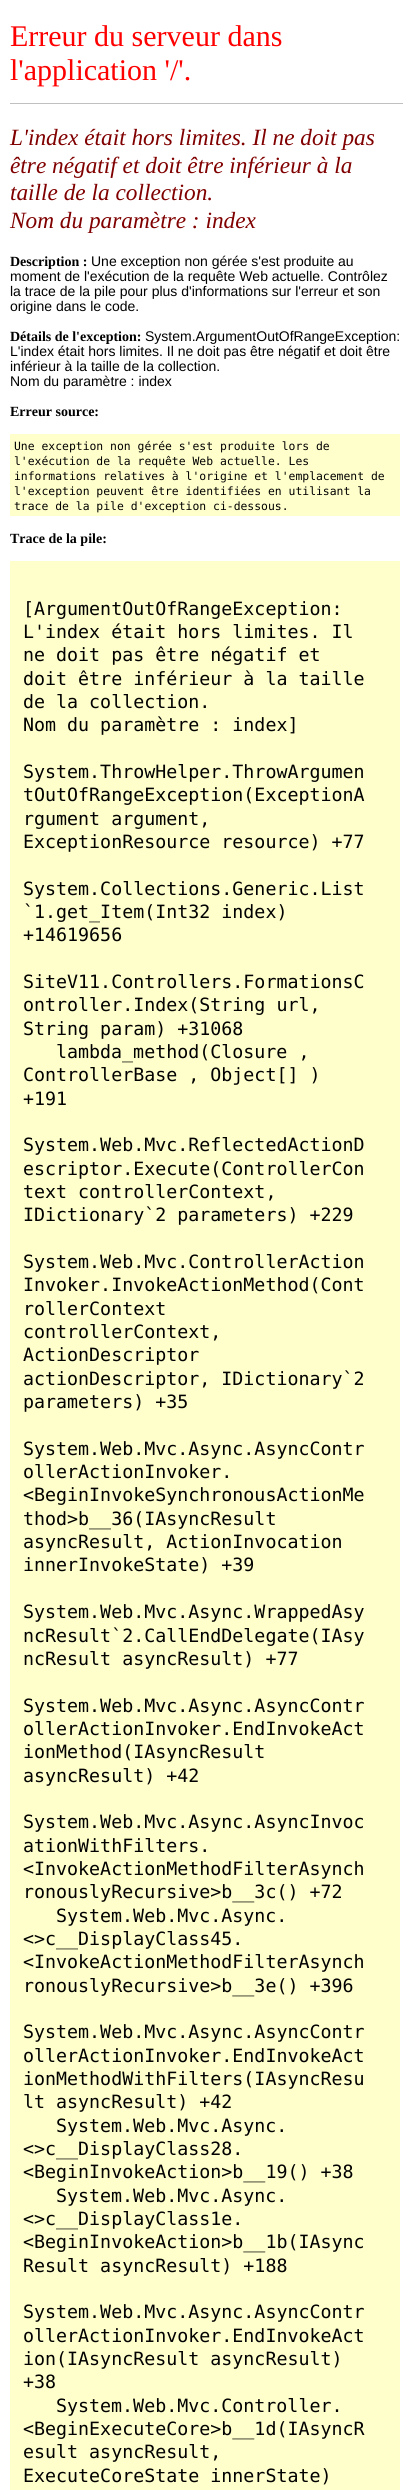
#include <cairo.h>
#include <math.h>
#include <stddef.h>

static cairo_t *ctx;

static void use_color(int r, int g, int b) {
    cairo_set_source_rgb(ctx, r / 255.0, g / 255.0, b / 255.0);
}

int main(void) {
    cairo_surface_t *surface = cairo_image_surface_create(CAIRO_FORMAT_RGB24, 410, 2490);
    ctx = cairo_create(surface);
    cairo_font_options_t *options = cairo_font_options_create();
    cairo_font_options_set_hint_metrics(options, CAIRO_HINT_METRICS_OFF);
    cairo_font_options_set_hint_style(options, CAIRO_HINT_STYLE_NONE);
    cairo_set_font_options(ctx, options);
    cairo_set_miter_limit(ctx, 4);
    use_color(255, 255, 255);
    cairo_paint(ctx);
    cairo_select_font_face(ctx, "Liberation Serif", CAIRO_FONT_SLANT_NORMAL, CAIRO_FONT_WEIGHT_NORMAL);
    cairo_set_font_size(ctx, 30);
    use_color(255, 0, 0);
    cairo_move_to(ctx, 10, 46);
    cairo_show_text(ctx, "Erreur du serveur dans");
    cairo_move_to(ctx, 10, 80);
    cairo_show_text(ctx, "l'application '/'.");
    use_color(192, 192, 192);
    cairo_rectangle(ctx, 10, 103, 393, 1);
    cairo_fill(ctx);
    cairo_select_font_face(ctx, "Liberation Serif", CAIRO_FONT_SLANT_ITALIC, CAIRO_FONT_WEIGHT_NORMAL);
    cairo_set_font_size(ctx, 23.3);
    use_color(128, 0, 0);
    cairo_move_to(ctx, 10, 145);
    cairo_show_text(ctx, "L'index était hors limites. Il ne doit pas");
    cairo_move_to(ctx, 10, 173);
    cairo_show_text(ctx, "être négatif et doit être inférieur à la");
    cairo_move_to(ctx, 10, 200);
    cairo_show_text(ctx, "taille de la collection.");
    cairo_move_to(ctx, 10, 228);
    cairo_show_text(ctx, "Nom du paramètre : index");
    cairo_select_font_face(ctx, "Liberation Serif", CAIRO_FONT_SLANT_NORMAL, CAIRO_FONT_WEIGHT_BOLD);
    cairo_set_font_size(ctx, 14);
    use_color(0, 0, 0);
    cairo_move_to(ctx, 10, 266);
    cairo_show_text(ctx, "Description :");
    cairo_select_font_face(ctx, "Liberation Sans", CAIRO_FONT_SLANT_NORMAL, CAIRO_FONT_WEIGHT_NORMAL);
    cairo_move_to(ctx, 91, 266);
    cairo_show_text(ctx, "Une exception non gérée s'est produite au");
    cairo_move_to(ctx, 10, 281);
    cairo_show_text(ctx, "moment de l'exécution de la requête Web actuelle. Contrôlez");
    cairo_move_to(ctx, 10, 296);
    cairo_show_text(ctx, "la trace de la pile pour plus d'informations sur l'erreur et son");
    cairo_move_to(ctx, 10, 311);
    cairo_show_text(ctx, "origine dans le code.");
    cairo_select_font_face(ctx, "Liberation Serif", CAIRO_FONT_SLANT_NORMAL, CAIRO_FONT_WEIGHT_BOLD);
    cairo_move_to(ctx, 10, 341);
    cairo_show_text(ctx, "Détails de l'exception:");
    cairo_select_font_face(ctx, "Liberation Sans", CAIRO_FONT_SLANT_NORMAL, CAIRO_FONT_WEIGHT_NORMAL);
    cairo_move_to(ctx, 145, 341);
    cairo_show_text(ctx, "System.ArgumentOutOfRangeException:");
    cairo_move_to(ctx, 10, 356);
    cairo_show_text(ctx, "L'index était hors limites. Il ne doit pas être négatif et doit être");
    cairo_move_to(ctx, 10, 371);
    cairo_show_text(ctx, "inférieur à la taille de la collection.");
    cairo_move_to(ctx, 10, 386);
    cairo_show_text(ctx, "Nom du paramètre : index");
    cairo_select_font_face(ctx, "Liberation Serif", CAIRO_FONT_SLANT_NORMAL, CAIRO_FONT_WEIGHT_BOLD);
    cairo_move_to(ctx, 10, 416);
    cairo_show_text(ctx, "Erreur source:");
    use_color(255, 255, 204);
    cairo_rectangle(ctx, 10, 434, 390, 82);
    cairo_fill(ctx);
    cairo_select_font_face(ctx, "DejaVu Sans Mono", CAIRO_FONT_SLANT_NORMAL, CAIRO_FONT_WEIGHT_NORMAL);
    cairo_set_font_size(ctx, 11.4);
    use_color(0, 0, 0);
    cairo_move_to(ctx, 14, 450);
    cairo_show_text(ctx, "Une exception non gérée s'est produite lors de");
    cairo_move_to(ctx, 14, 465);
    cairo_show_text(ctx, "l'exécution de la requête Web actuelle. Les");
    cairo_move_to(ctx, 14, 480);
    cairo_show_text(ctx, "informations relatives à l'origine et l'emplacement de");
    cairo_move_to(ctx, 14, 495);
    cairo_show_text(ctx, "l'exception peuvent être identifiées en utilisant la");
    cairo_move_to(ctx, 14, 510);
    cairo_show_text(ctx, "trace de la pile d'exception ci-dessous.");
    cairo_select_font_face(ctx, "Liberation Serif", CAIRO_FONT_SLANT_NORMAL, CAIRO_FONT_WEIGHT_BOLD);
    cairo_set_font_size(ctx, 14);
    cairo_move_to(ctx, 10, 543);
    cairo_show_text(ctx, "Trace de la pile:");
    use_color(255, 255, 204);
    cairo_rectangle(ctx, 10, 561, 390, 1929);
    cairo_fill(ctx);
    cairo_select_font_face(ctx, "DejaVu Sans Mono", CAIRO_FONT_SLANT_NORMAL, CAIRO_FONT_WEIGHT_NORMAL);
    cairo_set_font_size(ctx, 18.3);
    use_color(0, 0, 0);
    cairo_move_to(ctx, 23, 615);
    cairo_show_text(ctx, "[ArgumentOutOfRangeException:");
    cairo_move_to(ctx, 23, 638);
    cairo_show_text(ctx, "L'index était hors limites. Il");
    cairo_move_to(ctx, 23, 661);
    cairo_show_text(ctx, "ne doit pas être négatif et");
    cairo_move_to(ctx, 23, 685);
    cairo_show_text(ctx, "doit être inférieur à la taille");
    cairo_move_to(ctx, 23, 708);
    cairo_show_text(ctx, "de la collection.");
    cairo_move_to(ctx, 23, 731);
    cairo_show_text(ctx, "Nom du paramètre : index]");
    cairo_move_to(ctx, 23, 778);
    cairo_show_text(ctx, "System.ThrowHelper.ThrowArgumen");
    cairo_move_to(ctx, 23, 801);
    cairo_show_text(ctx, "tOutOfRangeException(ExceptionA");
    cairo_move_to(ctx, 23, 825);
    cairo_show_text(ctx, "rgument argument,");
    cairo_move_to(ctx, 23, 848);
    cairo_show_text(ctx, "ExceptionResource resource) +77");
    cairo_move_to(ctx, 23, 895);
    cairo_show_text(ctx, "System.Collections.Generic.List");
    cairo_move_to(ctx, 23, 918);
    cairo_show_text(ctx, "`1.get_Item(Int32 index)");
    cairo_move_to(ctx, 23, 941);
    cairo_show_text(ctx, "+14619656");
    cairo_move_to(ctx, 23, 988);
    cairo_show_text(ctx, "SiteV11.Controllers.FormationsC");
    cairo_move_to(ctx, 23, 1011);
    cairo_show_text(ctx, "ontroller.Index(String url,");
    cairo_move_to(ctx, 23, 1035);
    cairo_show_text(ctx, "String param) +31068");
    cairo_move_to(ctx, 56, 1058);
    cairo_show_text(ctx, "lambda_method(Closure ,");
    cairo_move_to(ctx, 23, 1081);
    cairo_show_text(ctx, "ControllerBase , Object[] )");
    cairo_move_to(ctx, 23, 1105);
    cairo_show_text(ctx, "+191");
    cairo_move_to(ctx, 23, 1151);
    cairo_show_text(ctx, "System.Web.Mvc.ReflectedActionD");
    cairo_move_to(ctx, 23, 1175);
    cairo_show_text(ctx, "escriptor.Execute(ControllerCon");
    cairo_move_to(ctx, 23, 1198);
    cairo_show_text(ctx, "text controllerContext,");
    cairo_move_to(ctx, 23, 1221);
    cairo_show_text(ctx, "IDictionary`2 parameters) +229");
    cairo_move_to(ctx, 23, 1268);
    cairo_show_text(ctx, "System.Web.Mvc.ControllerAction");
    cairo_move_to(ctx, 23, 1291);
    cairo_show_text(ctx, "Invoker.InvokeActionMethod(Cont");
    cairo_move_to(ctx, 23, 1315);
    cairo_show_text(ctx, "rollerContext");
    cairo_move_to(ctx, 23, 1338);
    cairo_show_text(ctx, "controllerContext,");
    cairo_move_to(ctx, 23, 1361);
    cairo_show_text(ctx, "ActionDescriptor");
    cairo_move_to(ctx, 23, 1385);
    cairo_show_text(ctx, "actionDescriptor, IDictionary`2");
    cairo_move_to(ctx, 23, 1408);
    cairo_show_text(ctx, "parameters) +35");
    cairo_move_to(ctx, 23, 1455);
    cairo_show_text(ctx, "System.Web.Mvc.Async.AsyncContr");
    cairo_move_to(ctx, 23, 1478);
    cairo_show_text(ctx, "ollerActionInvoker.");
    cairo_move_to(ctx, 23, 1501);
    cairo_show_text(ctx, "<BeginInvokeSynchronousActionMe");
    cairo_move_to(ctx, 23, 1525);
    cairo_show_text(ctx, "thod>b__36(IAsyncResult");
    cairo_move_to(ctx, 23, 1548);
    cairo_show_text(ctx, "asyncResult, ActionInvocation");
    cairo_move_to(ctx, 23, 1571);
    cairo_show_text(ctx, "innerInvokeState) +39");
    cairo_move_to(ctx, 23, 1618);
    cairo_show_text(ctx, "System.Web.Mvc.Async.WrappedAsy");
    cairo_move_to(ctx, 23, 1642);
    cairo_show_text(ctx, "ncResult`2.CallEndDelegate(IAsy");
    cairo_move_to(ctx, 23, 1665);
    cairo_show_text(ctx, "ncResult asyncResult) +77");
    cairo_move_to(ctx, 23, 1712);
    cairo_show_text(ctx, "System.Web.Mvc.Async.AsyncContr");
    cairo_move_to(ctx, 23, 1735);
    cairo_show_text(ctx, "ollerActionInvoker.EndInvokeAct");
    cairo_move_to(ctx, 23, 1758);
    cairo_show_text(ctx, "ionMethod(IAsyncResult");
    cairo_move_to(ctx, 23, 1782);
    cairo_show_text(ctx, "asyncResult) +42");
    cairo_move_to(ctx, 23, 1828);
    cairo_show_text(ctx, "System.Web.Mvc.Async.AsyncInvoc");
    cairo_move_to(ctx, 23, 1852);
    cairo_show_text(ctx, "ationWithFilters.");
    cairo_move_to(ctx, 23, 1875);
    cairo_show_text(ctx, "<InvokeActionMethodFilterAsynch");
    cairo_move_to(ctx, 23, 1898);
    cairo_show_text(ctx, "ronouslyRecursive>b__3c() +72");
    cairo_move_to(ctx, 56, 1922);
    cairo_show_text(ctx, "System.Web.Mvc.Async.");
    cairo_move_to(ctx, 23, 1945);
    cairo_show_text(ctx, "<>c__DisplayClass45.");
    cairo_move_to(ctx, 23, 1968);
    cairo_show_text(ctx, "<InvokeActionMethodFilterAsynch");
    cairo_move_to(ctx, 23, 1992);
    cairo_show_text(ctx, "ronouslyRecursive>b__3e() +396");
    cairo_move_to(ctx, 23, 2038);
    cairo_show_text(ctx, "System.Web.Mvc.Async.AsyncContr");
    cairo_move_to(ctx, 23, 2062);
    cairo_show_text(ctx, "ollerActionInvoker.EndInvokeAct");
    cairo_move_to(ctx, 23, 2085);
    cairo_show_text(ctx, "ionMethodWithFilters(IAsyncResu");
    cairo_move_to(ctx, 23, 2108);
    cairo_show_text(ctx, "lt asyncResult) +42");
    cairo_move_to(ctx, 56, 2132);
    cairo_show_text(ctx, "System.Web.Mvc.Async.");
    cairo_move_to(ctx, 23, 2155);
    cairo_show_text(ctx, "<>c__DisplayClass28.");
    cairo_move_to(ctx, 23, 2178);
    cairo_show_text(ctx, "<BeginInvokeAction>b__19() +38");
    cairo_move_to(ctx, 56, 2202);
    cairo_show_text(ctx, "System.Web.Mvc.Async.");
    cairo_move_to(ctx, 23, 2225);
    cairo_show_text(ctx, "<>c__DisplayClass1e.");
    cairo_move_to(ctx, 23, 2248);
    cairo_show_text(ctx, "<BeginInvokeAction>b__1b(IAsync");
    cairo_move_to(ctx, 23, 2272);
    cairo_show_text(ctx, "Result asyncResult) +188");
    cairo_move_to(ctx, 23, 2318);
    cairo_show_text(ctx, "System.Web.Mvc.Async.AsyncContr");
    cairo_move_to(ctx, 23, 2342);
    cairo_show_text(ctx, "ollerActionInvoker.EndInvokeAct");
    cairo_move_to(ctx, 23, 2365);
    cairo_show_text(ctx, "ion(IAsyncResult asyncResult)");
    cairo_move_to(ctx, 23, 2388);
    cairo_show_text(ctx, "+38");
    cairo_move_to(ctx, 56, 2412);
    cairo_show_text(ctx, "System.Web.Mvc.Controller.");
    cairo_move_to(ctx, 23, 2435);
    cairo_show_text(ctx, "<BeginExecuteCore>b__1d(IAsyncR");
    cairo_move_to(ctx, 23, 2458);
    cairo_show_text(ctx, "esult asyncResult,");
    cairo_move_to(ctx, 23, 2482);
    cairo_show_text(ctx, "ExecuteCoreState innerState)");
    cairo_surface_write_to_png(surface, "result.png");
    cairo_font_options_destroy(options);
    cairo_destroy(ctx);
    cairo_surface_destroy(surface);
    return 0;
}
